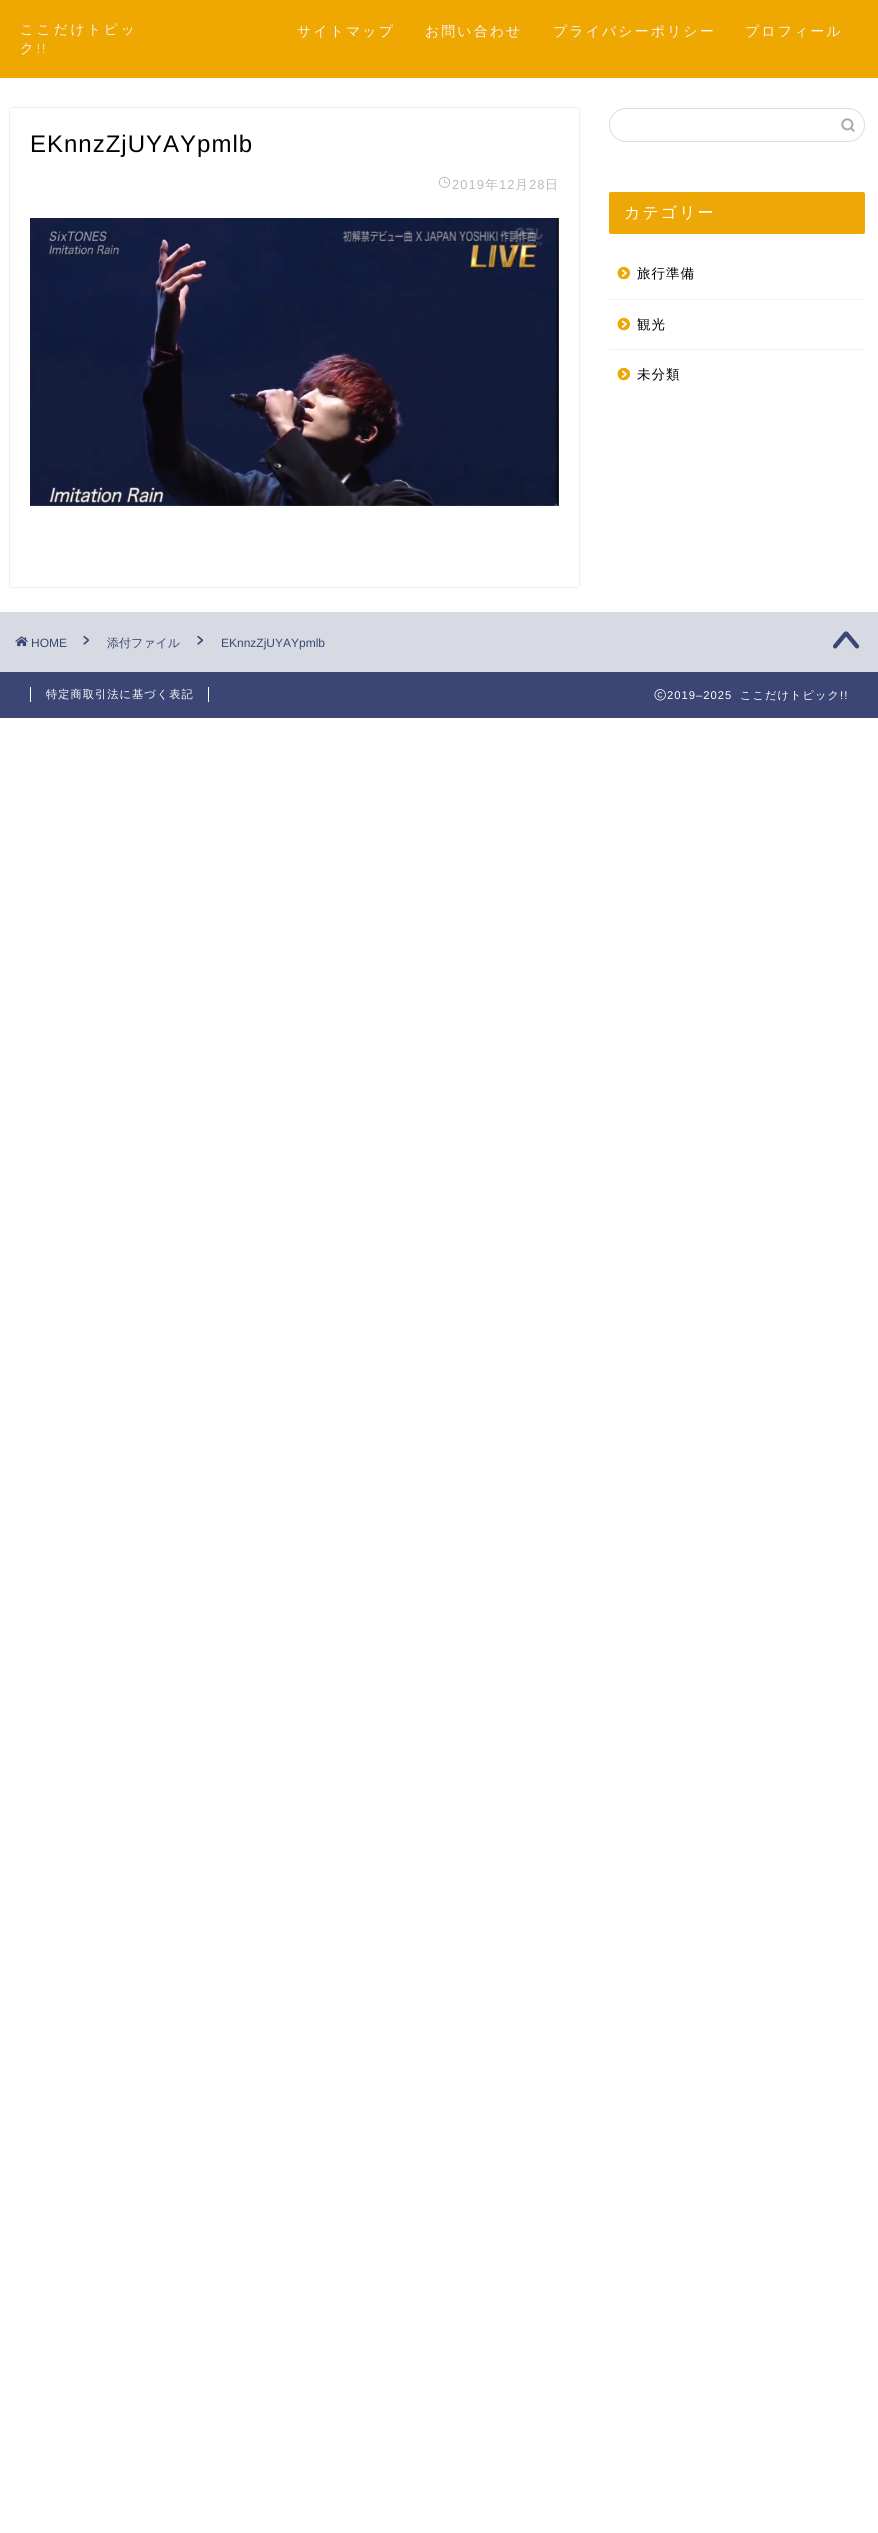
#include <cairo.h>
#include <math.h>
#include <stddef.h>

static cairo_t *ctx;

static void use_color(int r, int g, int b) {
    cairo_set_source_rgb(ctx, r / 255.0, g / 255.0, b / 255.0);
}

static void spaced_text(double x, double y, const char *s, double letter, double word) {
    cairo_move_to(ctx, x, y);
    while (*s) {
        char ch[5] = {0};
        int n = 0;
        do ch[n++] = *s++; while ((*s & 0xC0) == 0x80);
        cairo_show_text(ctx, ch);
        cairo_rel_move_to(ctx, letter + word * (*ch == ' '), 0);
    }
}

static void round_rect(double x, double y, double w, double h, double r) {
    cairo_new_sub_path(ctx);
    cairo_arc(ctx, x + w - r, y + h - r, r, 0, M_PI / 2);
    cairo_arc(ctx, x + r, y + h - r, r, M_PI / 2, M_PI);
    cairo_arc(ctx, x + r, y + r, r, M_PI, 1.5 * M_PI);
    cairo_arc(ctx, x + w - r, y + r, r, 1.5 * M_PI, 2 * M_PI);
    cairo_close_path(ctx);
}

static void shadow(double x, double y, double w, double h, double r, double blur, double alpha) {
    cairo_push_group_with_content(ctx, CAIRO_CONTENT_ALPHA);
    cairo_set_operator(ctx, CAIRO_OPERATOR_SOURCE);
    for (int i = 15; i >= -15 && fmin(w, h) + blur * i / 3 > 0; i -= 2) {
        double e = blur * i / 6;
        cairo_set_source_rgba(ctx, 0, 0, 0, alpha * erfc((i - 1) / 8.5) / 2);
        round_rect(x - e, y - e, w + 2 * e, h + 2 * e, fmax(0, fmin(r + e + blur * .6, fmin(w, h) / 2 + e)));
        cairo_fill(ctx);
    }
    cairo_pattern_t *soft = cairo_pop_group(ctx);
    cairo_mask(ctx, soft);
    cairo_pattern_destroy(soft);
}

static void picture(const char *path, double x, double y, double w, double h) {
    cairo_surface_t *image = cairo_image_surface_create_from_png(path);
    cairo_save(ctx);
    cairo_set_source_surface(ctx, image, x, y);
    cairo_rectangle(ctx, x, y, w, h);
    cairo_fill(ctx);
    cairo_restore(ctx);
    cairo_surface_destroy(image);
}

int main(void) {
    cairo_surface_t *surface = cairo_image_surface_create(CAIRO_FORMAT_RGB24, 878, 2533);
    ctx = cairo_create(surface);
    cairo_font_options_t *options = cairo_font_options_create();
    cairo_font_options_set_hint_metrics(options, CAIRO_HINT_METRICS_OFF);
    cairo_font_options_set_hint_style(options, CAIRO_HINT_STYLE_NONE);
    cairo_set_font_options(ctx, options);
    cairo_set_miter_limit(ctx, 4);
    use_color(255, 255, 255);
    cairo_paint(ctx);
    use_color(239, 168, 2);
    cairo_rectangle(ctx, 0, 0, 878, 78);
    cairo_fill(ctx);
    cairo_select_font_face(ctx, "WenQuanYi Zen Hei Medium", CAIRO_FONT_SLANT_NORMAL, CAIRO_FONT_WEIGHT_NORMAL);
    cairo_set_font_size(ctx, 13.5);
    use_color(244, 244, 244);
    spaced_text(20, 34, "ここだけトピッ", 3, 0);
    spaced_text(20, 53, "ク", 3, 0);
    cairo_select_font_face(ctx, "Quicksand Light", CAIRO_FONT_SLANT_NORMAL, CAIRO_FONT_WEIGHT_NORMAL);
    spaced_text(37, 53, "!!", 3, 0);
    cairo_select_font_face(ctx, "WenQuanYi Zen Hei Medium", CAIRO_FONT_SLANT_NORMAL, CAIRO_FONT_WEIGHT_NORMAL);
    cairo_set_font_size(ctx, 14);
    spaced_text(297, 36, "サイトマップ", 2, 0);
    spaced_text(425, 36, "お問い合わせ", 2, 0);
    spaced_text(553, 36, "プライバシーポリシー", 2, 0);
    spaced_text(745, 36, "プロフィール", 2, 0);
    use_color(0, 0, 0);
    shadow(10, 108, 569, 479, 2, 1, 0.18);
    use_color(255, 255, 255);
    round_rect(10, 108, 569, 479, 2);
    cairo_fill(ctx);
    cairo_select_font_face(ctx, "Liberation Sans", CAIRO_FONT_SLANT_NORMAL, CAIRO_FONT_WEIGHT_NORMAL);
    cairo_set_font_size(ctx, 24);
    use_color(0, 0, 0);
    spaced_text(30, 152, "EKnnzZjUYAYpmlb", 1, 0);
    picture("img1.png", 438, 176, 13, 12);
    cairo_set_font_size(ctx, 13);
    use_color(187, 187, 187);
    spaced_text(452, 189, "2019", 1, 0);
    cairo_select_font_face(ctx, "WenQuanYi Zen Hei Medium", CAIRO_FONT_SLANT_NORMAL, CAIRO_FONT_WEIGHT_NORMAL);
    spaced_text(485, 189, "年", 1, 0);
    cairo_select_font_face(ctx, "Liberation Sans", CAIRO_FONT_SLANT_NORMAL, CAIRO_FONT_WEIGHT_NORMAL);
    spaced_text(499, 189, "12", 1, 0);
    cairo_select_font_face(ctx, "WenQuanYi Zen Hei Medium", CAIRO_FONT_SLANT_NORMAL, CAIRO_FONT_WEIGHT_NORMAL);
    spaced_text(515, 189, "月", 1, 0);
    cairo_select_font_face(ctx, "Liberation Sans", CAIRO_FONT_SLANT_NORMAL, CAIRO_FONT_WEIGHT_NORMAL);
    spaced_text(529, 189, "28", 1, 0);
    cairo_select_font_face(ctx, "WenQuanYi Zen Hei Medium", CAIRO_FONT_SLANT_NORMAL, CAIRO_FONT_WEIGHT_NORMAL);
    spaced_text(545, 189, "日", 1, 0);
    picture("img2.png", 30, 218, 529, 288);
    round_rect(609.5, 108.5, 255, 33, 16.5);
    use_color(221, 221, 221);
    cairo_set_line_width(ctx, 1);
    cairo_stroke(ctx);
    picture("img3.png", 841, 118, 14, 14);
    use_color(237, 168, 7);
    round_rect(609, 192, 256, 42, 2);
    cairo_fill(ctx);
    cairo_set_font_size(ctx, 16);
    use_color(255, 255, 255);
    spaced_text(624, 218, "カテゴリー", 2, 0);
    use_color(242, 242, 242);
    cairo_rectangle(ctx, 609, 299, 256, 1);
    cairo_fill(ctx);
    picture("img4.png", 617, 266, 13, 14);
    cairo_set_font_size(ctx, 13.5);
    use_color(0, 0, 0);
    spaced_text(637, 278, "旅行準備", 1, 0);
    use_color(242, 242, 242);
    cairo_rectangle(ctx, 609, 349, 256, 1);
    cairo_fill(ctx);
    picture("img4.png", 617, 317, 13, 14);
    use_color(0, 0, 0);
    spaced_text(637, 329, "観光", 1, 0);
    picture("img4.png", 617, 367, 13, 14);
    spaced_text(637, 379, "未分類", 1, 0);
    use_color(216, 218, 227);
    cairo_rectangle(ctx, 0, 612, 878, 60);
    cairo_fill(ctx);
    picture("img5.png", 15, 636, 13, 11);
    cairo_select_font_face(ctx, "Liberation Sans", CAIRO_FONT_SLANT_NORMAL, CAIRO_FONT_WEIGHT_NORMAL);
    cairo_set_font_size(ctx, 12);
    use_color(59, 70, 117);
    cairo_move_to(ctx, 31, 647);
    cairo_show_text(ctx, "HOME");
    picture("img6.png", 83, 635, 7, 10);
    cairo_select_font_face(ctx, "WenQuanYi Zen Hei Medium", CAIRO_FONT_SLANT_NORMAL, CAIRO_FONT_WEIGHT_NORMAL);
    cairo_move_to(ctx, 107, 647);
    cairo_show_text(ctx, "添付ファイル");
    picture("img6.png", 197, 635, 7, 10);
    cairo_select_font_face(ctx, "Liberation Sans", CAIRO_FONT_SLANT_NORMAL, CAIRO_FONT_WEIGHT_NORMAL);
    cairo_move_to(ctx, 221, 647);
    cairo_show_text(ctx, "EKnnzZjUYAYpmlb");
    picture("img7.png", 833, 631, 27, 18);
    cairo_rectangle(ctx, 0, 672, 878, 46);
    cairo_fill(ctx);
    use_color(255, 255, 255);
    cairo_rectangle(ctx, 208, 687, 1, 15);
    cairo_fill(ctx);
    cairo_rectangle(ctx, 30, 687, 1, 15);
    cairo_fill(ctx);
    cairo_select_font_face(ctx, "WenQuanYi Zen Hei Medium", CAIRO_FONT_SLANT_NORMAL, CAIRO_FONT_WEIGHT_NORMAL);
    cairo_set_font_size(ctx, 11.25);
    spaced_text(46, 698, "特定商取引法に基づく表記", 1, 0);
    picture("img8.png", 654, 689, 12, 12);
    cairo_select_font_face(ctx, "Liberation Sans", CAIRO_FONT_SLANT_NORMAL, CAIRO_FONT_WEIGHT_NORMAL);
    spaced_text(667, 699, "2019–2025", 1, 0);
    cairo_select_font_face(ctx, "WenQuanYi Zen Hei Medium", CAIRO_FONT_SLANT_NORMAL, CAIRO_FONT_WEIGHT_NORMAL);
    spaced_text(740, 699, "ここだけトピック", 1, 0);
    cairo_select_font_face(ctx, "Liberation Sans", CAIRO_FONT_SLANT_NORMAL, CAIRO_FONT_WEIGHT_NORMAL);
    spaced_text(840, 699, "!!", 1, 0);
    cairo_surface_write_to_png(surface, "result.png");
    cairo_font_options_destroy(options);
    cairo_destroy(ctx);
    cairo_surface_destroy(surface);
    return 0;
}
